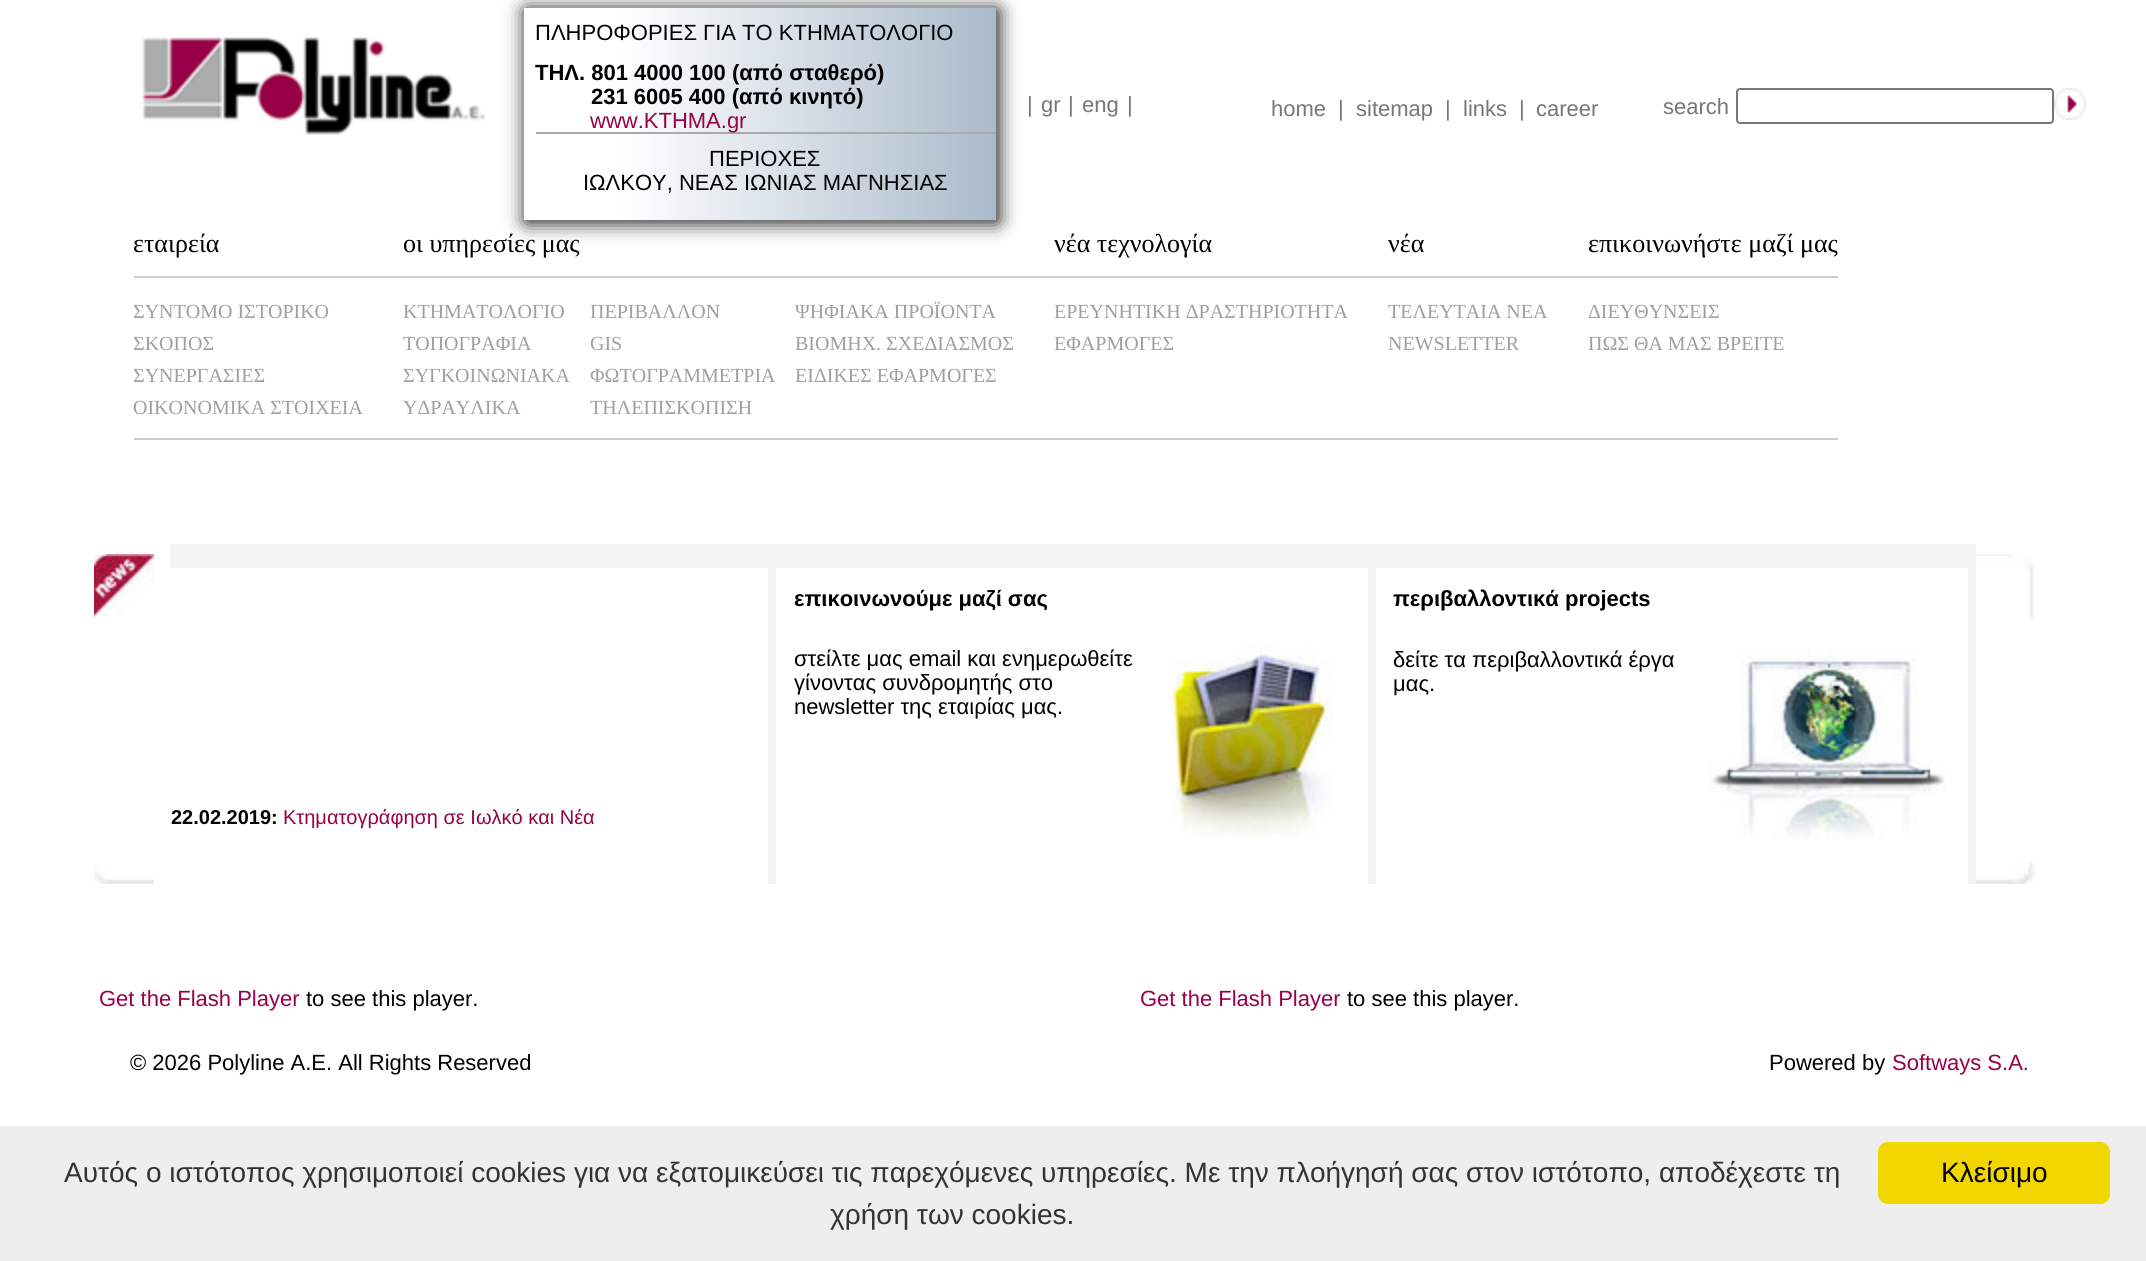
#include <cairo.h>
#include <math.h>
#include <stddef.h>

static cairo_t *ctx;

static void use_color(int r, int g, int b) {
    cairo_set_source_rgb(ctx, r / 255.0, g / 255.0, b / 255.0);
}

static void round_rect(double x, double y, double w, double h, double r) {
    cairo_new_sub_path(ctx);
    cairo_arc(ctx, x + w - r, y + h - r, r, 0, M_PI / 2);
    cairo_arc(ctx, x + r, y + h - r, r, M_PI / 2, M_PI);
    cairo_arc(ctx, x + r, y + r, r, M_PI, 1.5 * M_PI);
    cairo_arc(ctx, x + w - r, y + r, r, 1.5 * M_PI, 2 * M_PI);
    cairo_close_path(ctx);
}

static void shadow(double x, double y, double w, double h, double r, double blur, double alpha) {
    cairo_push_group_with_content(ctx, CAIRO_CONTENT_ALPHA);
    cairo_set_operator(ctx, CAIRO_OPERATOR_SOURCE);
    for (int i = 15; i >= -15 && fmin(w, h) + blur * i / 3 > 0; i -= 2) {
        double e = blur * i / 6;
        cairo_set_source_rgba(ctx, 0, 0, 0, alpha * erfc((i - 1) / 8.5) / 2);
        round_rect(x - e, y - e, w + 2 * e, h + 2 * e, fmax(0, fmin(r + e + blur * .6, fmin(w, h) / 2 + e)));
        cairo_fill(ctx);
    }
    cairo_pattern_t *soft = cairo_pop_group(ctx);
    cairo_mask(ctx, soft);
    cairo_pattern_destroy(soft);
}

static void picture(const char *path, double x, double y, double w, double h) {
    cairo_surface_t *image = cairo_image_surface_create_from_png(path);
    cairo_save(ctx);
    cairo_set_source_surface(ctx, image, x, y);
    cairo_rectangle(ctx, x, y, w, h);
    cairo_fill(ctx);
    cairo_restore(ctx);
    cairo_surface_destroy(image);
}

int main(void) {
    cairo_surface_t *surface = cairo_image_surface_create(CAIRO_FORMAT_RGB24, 2146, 1261);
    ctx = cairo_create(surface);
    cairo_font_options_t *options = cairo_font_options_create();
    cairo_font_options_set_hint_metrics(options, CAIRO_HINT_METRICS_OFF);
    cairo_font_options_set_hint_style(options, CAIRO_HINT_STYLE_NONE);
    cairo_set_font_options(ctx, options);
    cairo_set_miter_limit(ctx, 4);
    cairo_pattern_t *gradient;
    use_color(255, 255, 255);
    cairo_paint(ctx);
    use_color(0, 0, 0);
    shadow(526, 10, 472, 212, 0, 10, 1);
    gradient = cairo_pattern_create_linear(996, 114, 524, 114);
    cairo_pattern_add_color_stop_rgba(gradient, 0, 0.667, 0.733, 0.8, 1);
    cairo_pattern_add_color_stop_rgba(gradient, 0.8, 1, 1, 1, 1);
    cairo_set_source(ctx, gradient);
    cairo_pattern_destroy(gradient);
    cairo_rectangle(ctx, 524, 8, 472, 212);
    cairo_fill(ctx);
    use_color(170, 170, 170);
    cairo_rectangle(ctx, 536, 132, 460, 2);
    cairo_fill(ctx);
    cairo_select_font_face(ctx, "Liberation Sans", CAIRO_FONT_SLANT_NORMAL, CAIRO_FONT_WEIGHT_NORMAL);
    cairo_set_font_size(ctx, 22);
    use_color(0, 0, 0);
    cairo_move_to(ctx, 535, 40);
    cairo_show_text(ctx, "ΠΛΗΡΟΦΟΡΙΕΣ ΓΙΑ ΤΟ ΚΤΗΜΑΤΟΛΟΓΙΟ");
    cairo_select_font_face(ctx, "Liberation Sans", CAIRO_FONT_SLANT_NORMAL, CAIRO_FONT_WEIGHT_BOLD);
    cairo_move_to(ctx, 535, 80);
    cairo_show_text(ctx, "ΤΗΛ. 801 4000 100 (από σταθερό)");
    cairo_move_to(ctx, 591, 104);
    cairo_show_text(ctx, "231 6005 400 (από κινητό)");
    cairo_select_font_face(ctx, "Liberation Sans", CAIRO_FONT_SLANT_NORMAL, CAIRO_FONT_WEIGHT_NORMAL);
    use_color(152, 0, 73);
    cairo_move_to(ctx, 590, 128);
    cairo_show_text(ctx, "www.ΚΤΗΜΑ.gr");
    use_color(0, 0, 0);
    cairo_move_to(ctx, 709, 166);
    cairo_show_text(ctx, "ΠΕΡΙΟΧΕΣ");
    cairo_move_to(ctx, 583, 190);
    cairo_show_text(ctx, "ΙΩΛΚΟΥ, ΝΕΑΣ ΙΩΝΙΑΣ ΜΑΓΝΗΣΙΑΣ");
    picture("img1.png", 141, 37, 345, 98);
    use_color(118, 118, 118);
    cairo_move_to(ctx, 1027, 112);
    cairo_show_text(ctx, "|");
    cairo_move_to(ctx, 1041, 112);
    cairo_show_text(ctx, "gr");
    cairo_move_to(ctx, 1068, 112);
    cairo_show_text(ctx, "|");
    cairo_move_to(ctx, 1082, 112);
    cairo_show_text(ctx, "eng");
    cairo_move_to(ctx, 1127, 112);
    cairo_show_text(ctx, "|");
    cairo_move_to(ctx, 1271, 116);
    cairo_show_text(ctx, "home");
    cairo_move_to(ctx, 1338, 116);
    cairo_show_text(ctx, "|");
    cairo_move_to(ctx, 1356, 116);
    cairo_show_text(ctx, "sitemap");
    cairo_move_to(ctx, 1445, 116);
    cairo_show_text(ctx, "|");
    cairo_move_to(ctx, 1463, 116);
    cairo_show_text(ctx, "links");
    cairo_move_to(ctx, 1519, 116);
    cairo_show_text(ctx, "|");
    cairo_move_to(ctx, 1536, 116);
    cairo_show_text(ctx, "career");
    cairo_move_to(ctx, 1663, 114);
    cairo_show_text(ctx, "search");
    round_rect(1737, 89, 316, 34, 3);
    cairo_stroke(ctx);
    picture("img2.png", 2054, 88, 32, 32);
    use_color(204, 204, 204);
    cairo_rectangle(ctx, 134, 438, 1704, 2);
    cairo_fill(ctx);
    cairo_rectangle(ctx, 134, 276, 1704, 2);
    cairo_fill(ctx);
    cairo_select_font_face(ctx, "Liberation Serif", CAIRO_FONT_SLANT_NORMAL, CAIRO_FONT_WEIGHT_NORMAL);
    cairo_set_font_size(ctx, 26);
    use_color(0, 0, 0);
    cairo_move_to(ctx, 133, 252);
    cairo_show_text(ctx, "εταιρεία");
    cairo_set_font_size(ctx, 20);
    use_color(157, 159, 163);
    cairo_move_to(ctx, 133, 318);
    cairo_show_text(ctx, "ΣΥΝΤΟΜΟ ΙΣΤΟΡΙΚΟ");
    cairo_move_to(ctx, 133, 350);
    cairo_show_text(ctx, "ΣΚΟΠΟΣ");
    cairo_move_to(ctx, 133, 382);
    cairo_show_text(ctx, "ΣΥΝΕΡΓΑΣΙΕΣ");
    cairo_move_to(ctx, 133, 414);
    cairo_show_text(ctx, "ΟΙΚΟΝΟΜΙΚΑ ΣΤΟΙΧΕΙΑ");
    cairo_set_font_size(ctx, 26);
    use_color(0, 0, 0);
    cairo_move_to(ctx, 403, 252);
    cairo_show_text(ctx, "οι υπηρεσίες μας");
    cairo_set_font_size(ctx, 20);
    use_color(157, 159, 163);
    cairo_move_to(ctx, 403, 318);
    cairo_show_text(ctx, "ΚΤΗΜΑΤΟΛΟΓΙΟ");
    cairo_move_to(ctx, 403, 350);
    cairo_show_text(ctx, "ΤΟΠΟΓΡΑΦΙΑ");
    cairo_move_to(ctx, 403, 382);
    cairo_show_text(ctx, "ΣΥΓΚΟΙΝΩΝΙΑΚΑ");
    cairo_move_to(ctx, 403, 414);
    cairo_show_text(ctx, "ΥΔΡΑΥΛΙΚΑ");
    cairo_move_to(ctx, 590, 318);
    cairo_show_text(ctx, "ΠΕΡΙΒΑΛΛΟΝ");
    cairo_move_to(ctx, 590, 350);
    cairo_show_text(ctx, "GIS");
    cairo_move_to(ctx, 590, 382);
    cairo_show_text(ctx, "ΦΩΤΟΓΡΑΜΜΕΤΡΙΑ");
    cairo_move_to(ctx, 590, 414);
    cairo_show_text(ctx, "ΤΗΛΕΠΙΣΚΟΠΙΣΗ");
    cairo_move_to(ctx, 795, 318);
    cairo_show_text(ctx, "ΨΗΦΙΑΚΑ ΠΡΟΪΟΝΤΑ");
    cairo_move_to(ctx, 795, 350);
    cairo_show_text(ctx, "ΒΙΟΜHX. ΣΧΕΔΙΑΣΜΟΣ");
    cairo_move_to(ctx, 795, 382);
    cairo_show_text(ctx, "ΕΙΔΙΚΕΣ ΕΦΑΡΜΟΓΕΣ");
    cairo_set_font_size(ctx, 26);
    use_color(0, 0, 0);
    cairo_move_to(ctx, 1054, 252);
    cairo_show_text(ctx, "νέα τεχνολογία");
    cairo_set_font_size(ctx, 20);
    use_color(157, 159, 163);
    cairo_move_to(ctx, 1054, 318);
    cairo_show_text(ctx, "ΕΡΕΥΝΗΤΙΚΗ ΔΡΑΣΤΗΡΙΟΤΗΤΑ");
    cairo_move_to(ctx, 1054, 350);
    cairo_show_text(ctx, "ΕΦΑΡΜΟΓΕΣ");
    cairo_set_font_size(ctx, 26);
    use_color(0, 0, 0);
    cairo_move_to(ctx, 1388, 252);
    cairo_show_text(ctx, "νέα");
    cairo_set_font_size(ctx, 20);
    use_color(157, 159, 163);
    cairo_move_to(ctx, 1388, 318);
    cairo_show_text(ctx, "ΤΕΛΕΥΤΑΙΑ ΝΕΑ");
    cairo_move_to(ctx, 1388, 350);
    cairo_show_text(ctx, "NEWSLETTER");
    cairo_set_font_size(ctx, 26);
    use_color(0, 0, 0);
    cairo_move_to(ctx, 1588, 252);
    cairo_show_text(ctx, "επικοινωνήστε μαζί μας");
    cairo_set_font_size(ctx, 20);
    use_color(157, 159, 163);
    cairo_move_to(ctx, 1588, 318);
    cairo_show_text(ctx, "ΔΙΕΥΘΥΝΣΕΙΣ");
    cairo_move_to(ctx, 1588, 350);
    cairo_show_text(ctx, "ΠΩΣ ΘΑ ΜΑΣ ΒΡΕΙΤΕ");
    picture("img3.png", 94, 554, 60, 64);
    use_color(243, 243, 243);
    cairo_rectangle(ctx, 170, 544, 598, 24);
    cairo_fill(ctx);
    cairo_rectangle(ctx, 768, 544, 8, 340);
    cairo_fill(ctx);
    cairo_rectangle(ctx, 776, 544, 592, 24);
    cairo_fill(ctx);
    cairo_select_font_face(ctx, "Liberation Sans", CAIRO_FONT_SLANT_NORMAL, CAIRO_FONT_WEIGHT_BOLD);
    cairo_set_font_size(ctx, 22);
    use_color(0, 0, 0);
    cairo_move_to(ctx, 794, 606);
    cairo_show_text(ctx, "επικοινωνούμε μαζί σας");
    use_color(243, 243, 243);
    cairo_rectangle(ctx, 1368, 544, 8, 340);
    cairo_fill(ctx);
    cairo_rectangle(ctx, 1376, 544, 592, 24);
    cairo_fill(ctx);
    use_color(0, 0, 0);
    cairo_move_to(ctx, 1393, 606);
    cairo_show_text(ctx, "περιβαλλοντικά projects");
    use_color(243, 243, 243);
    cairo_rectangle(ctx, 1968, 544, 8, 340);
    cairo_fill(ctx);
    picture("img4.png", 1976, 554, 58, 64);
    cairo_select_font_face(ctx, "Liberation Sans", CAIRO_FONT_SLANT_NORMAL, CAIRO_FONT_WEIGHT_NORMAL);
    use_color(0, 0, 0);
    cairo_move_to(ctx, 794, 666);
    cairo_show_text(ctx, "στείλτε μας email και ενημερωθείτε");
    picture("img5.png", 1171, 646, 162, 192);
    cairo_move_to(ctx, 794, 690);
    cairo_show_text(ctx, "γίνοντας συνδρομητής στο");
    cairo_move_to(ctx, 794, 714);
    cairo_show_text(ctx, "newsletter της εταιρίας μας.");
    cairo_move_to(ctx, 1393, 667);
    cairo_show_text(ctx, "δείτε τα περιβαλλοντικά έργα");
    picture("img6.png", 1710, 648, 236, 192);
    cairo_move_to(ctx, 1393, 691);
    cairo_show_text(ctx, "μας.");
    cairo_select_font_face(ctx, "Liberation Sans", CAIRO_FONT_SLANT_NORMAL, CAIRO_FONT_WEIGHT_BOLD);
    cairo_set_font_size(ctx, 20);
    cairo_move_to(ctx, 171, 824);
    cairo_show_text(ctx, "22.02.2019:");
    cairo_select_font_face(ctx, "Liberation Sans", CAIRO_FONT_SLANT_NORMAL, CAIRO_FONT_WEIGHT_NORMAL);
    use_color(152, 0, 73);
    cairo_move_to(ctx, 283, 824);
    cairo_show_text(ctx, "Κτηματογράφηση σε Ιωλκό και Νέα");
    picture("img7.png", 94, 867, 60, 17);
    picture("img8.png", 1976, 862, 60, 22);
    cairo_set_font_size(ctx, 22);
    cairo_move_to(ctx, 99, 1006);
    cairo_show_text(ctx, "Get the Flash Player");
    use_color(0, 0, 0);
    cairo_move_to(ctx, 306, 1006);
    cairo_show_text(ctx, "to see this player.");
    use_color(152, 0, 73);
    cairo_move_to(ctx, 1140, 1006);
    cairo_show_text(ctx, "Get the Flash Player");
    use_color(0, 0, 0);
    cairo_move_to(ctx, 1347, 1006);
    cairo_show_text(ctx, "to see this player.");
    cairo_move_to(ctx, 130, 1070);
    cairo_show_text(ctx, "© 2026 Polyline Α.Ε. All Rights Reserved");
    cairo_move_to(ctx, 1769, 1070);
    cairo_show_text(ctx, "Powered by");
    use_color(152, 0, 73);
    cairo_move_to(ctx, 1892, 1070);
    cairo_show_text(ctx, "Softways S.A.");
    use_color(238, 238, 238);
    cairo_rectangle(ctx, 0, 1126, 2146, 135);
    cairo_fill(ctx);
    cairo_set_font_size(ctx, 28);
    use_color(51, 51, 51);
    cairo_move_to(ctx, 64, 1182);
    cairo_show_text(ctx, "Αυτός ο ιστότοπος χρησιμοποιεί cookies για να εξατομικεύσει τις παρεχόμενες υπηρεσίες. Με την πλοήγησή σας στον ιστότοπο, αποδέχεστε τη");
    cairo_move_to(ctx, 830, 1224);
    cairo_show_text(ctx, "χρήση των cookies.");
    use_color(241, 214, 0);
    round_rect(1878, 1142, 232, 62, 10);
    cairo_fill(ctx);
    use_color(0, 0, 0);
    cairo_move_to(ctx, 1941, 1182);
    cairo_show_text(ctx, "Κλείσιμο");
    cairo_surface_write_to_png(surface, "result.png");
    cairo_font_options_destroy(options);
    cairo_destroy(ctx);
    cairo_surface_destroy(surface);
    return 0;
}
